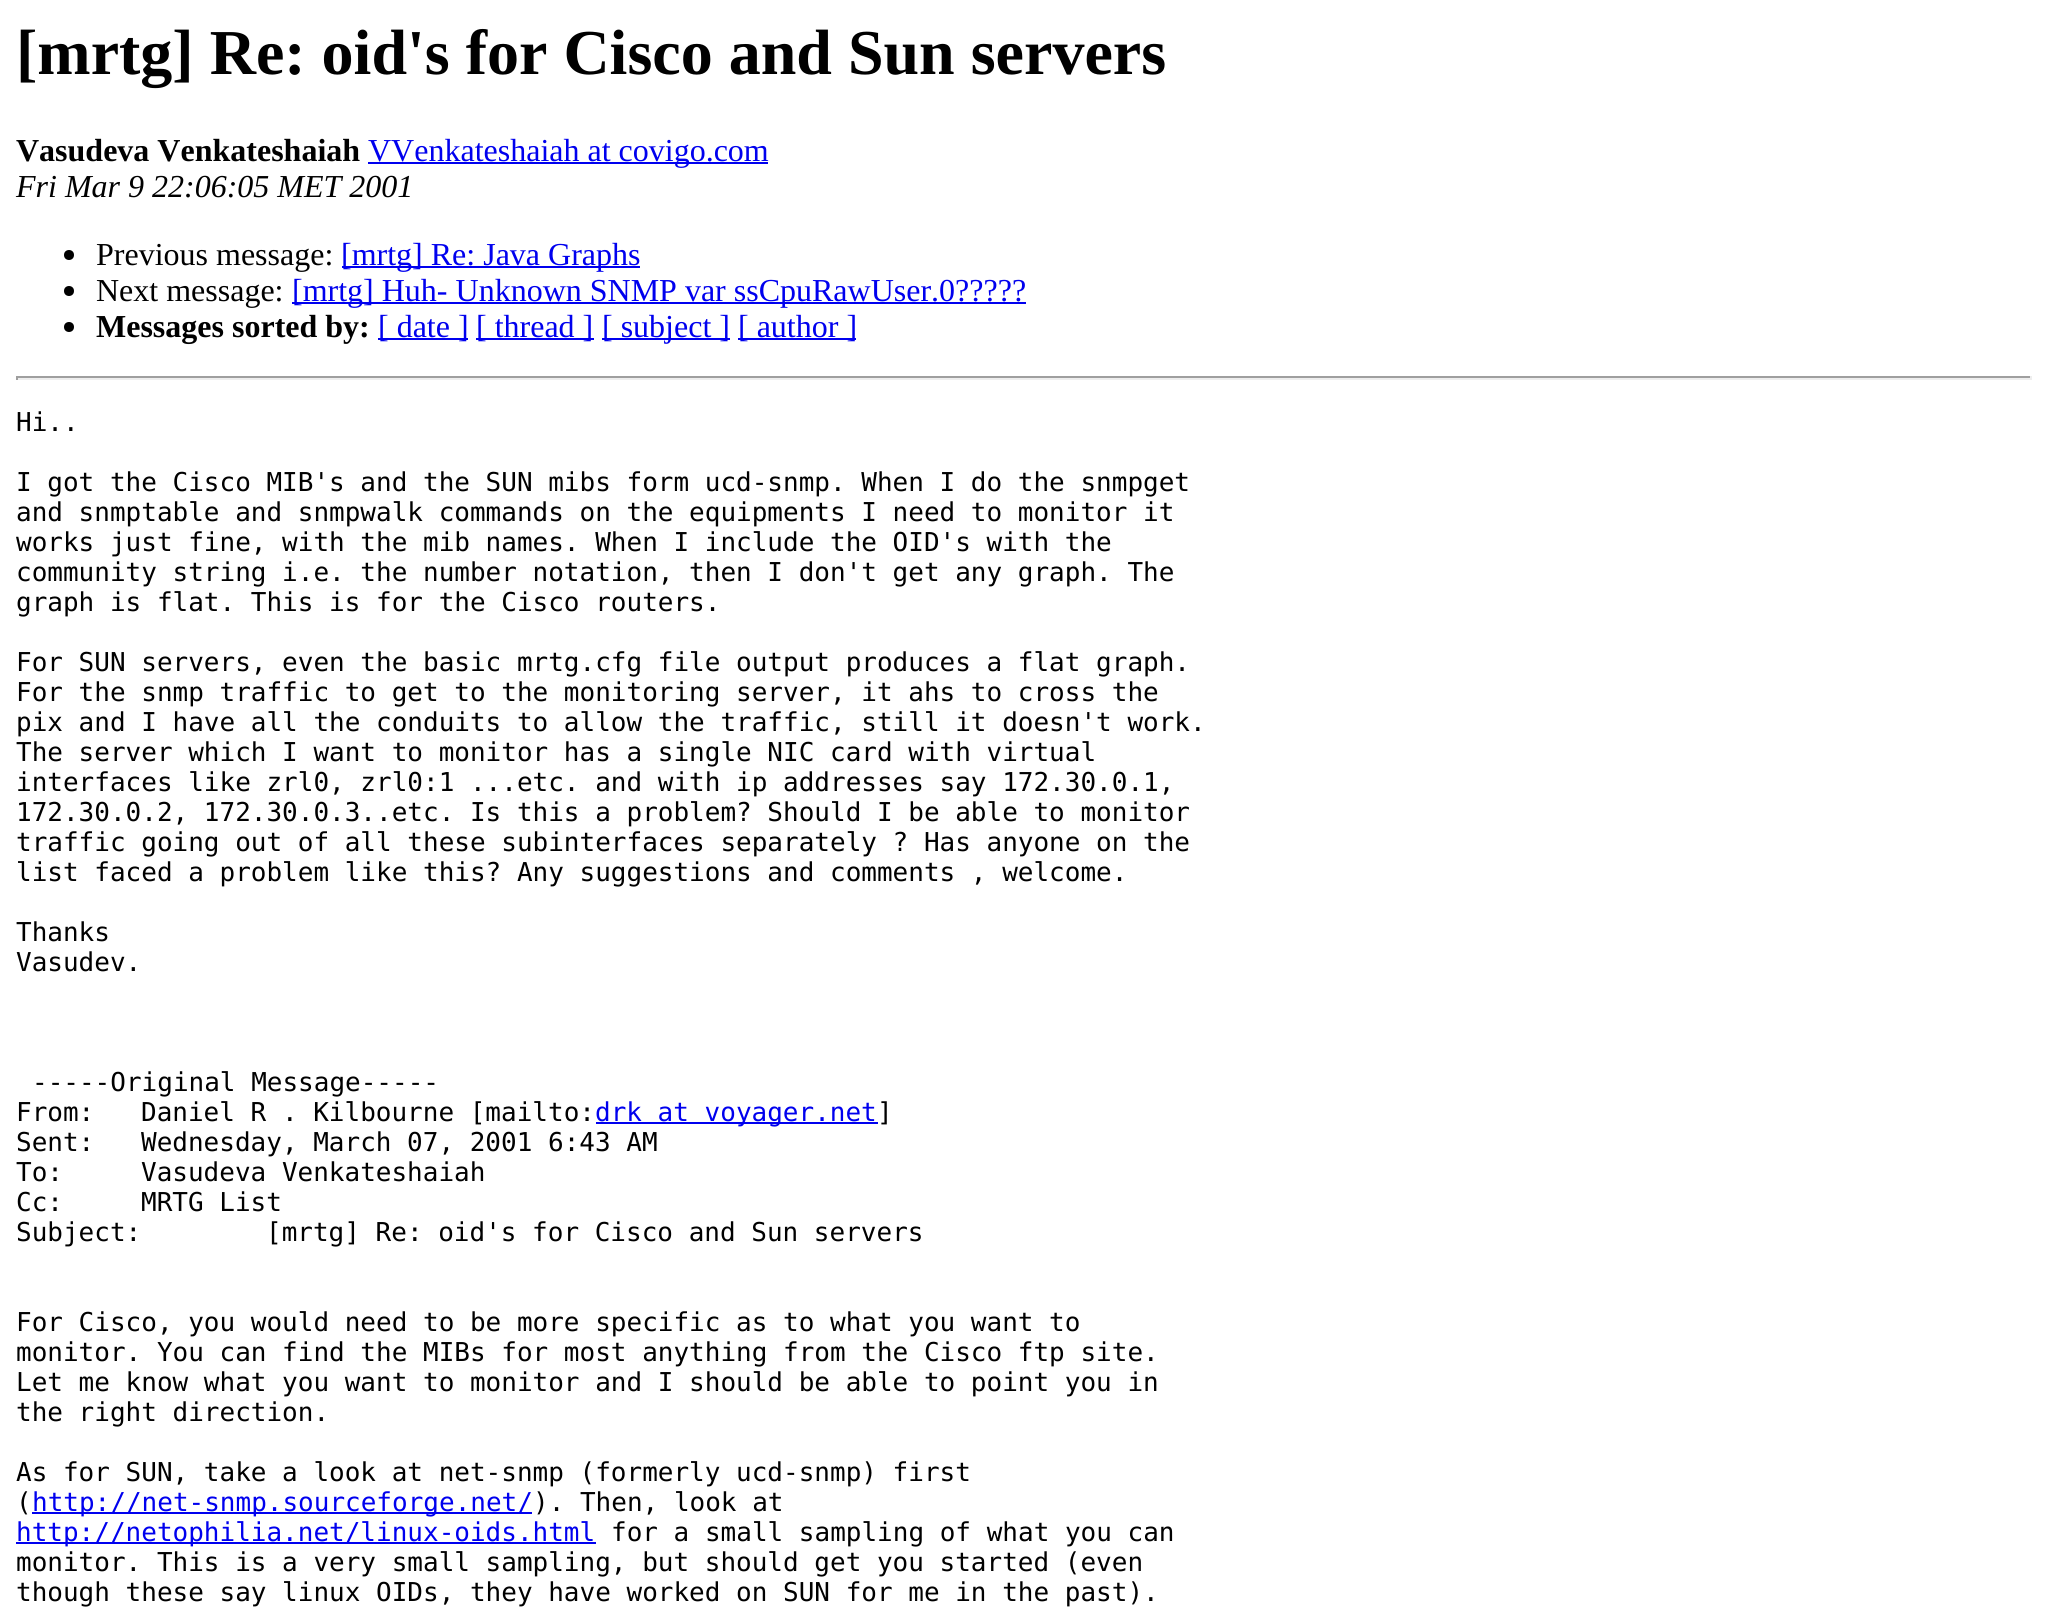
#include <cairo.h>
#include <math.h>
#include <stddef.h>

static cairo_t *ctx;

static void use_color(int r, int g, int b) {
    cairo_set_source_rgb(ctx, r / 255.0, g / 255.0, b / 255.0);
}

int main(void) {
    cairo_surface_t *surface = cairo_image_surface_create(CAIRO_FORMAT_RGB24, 2047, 1621);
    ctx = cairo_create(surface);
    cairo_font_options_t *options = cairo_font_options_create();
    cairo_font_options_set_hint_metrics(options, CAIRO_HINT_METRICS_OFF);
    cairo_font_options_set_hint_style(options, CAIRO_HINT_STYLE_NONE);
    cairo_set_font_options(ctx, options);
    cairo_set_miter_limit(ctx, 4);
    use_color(255, 255, 255);
    cairo_paint(ctx);
    cairo_select_font_face(ctx, "Liberation Serif", CAIRO_FONT_SLANT_NORMAL, CAIRO_FONT_WEIGHT_BOLD);
    cairo_set_font_size(ctx, 64);
    use_color(0, 0, 0);
    cairo_move_to(ctx, 16, 74);
    cairo_show_text(ctx, "[mrtg] Re: oid's for Cisco and Sun servers");
    cairo_set_font_size(ctx, 32);
    cairo_move_to(ctx, 16, 161);
    cairo_show_text(ctx, "Vasudeva Venkateshaiah");
    use_color(0, 0, 238);
    cairo_rectangle(ctx, 368, 162, 400, 2);
    cairo_fill(ctx);
    cairo_select_font_face(ctx, "Liberation Serif", CAIRO_FONT_SLANT_NORMAL, CAIRO_FONT_WEIGHT_NORMAL);
    cairo_move_to(ctx, 368, 161);
    cairo_show_text(ctx, "VVenkateshaiah at covigo.com");
    cairo_select_font_face(ctx, "Liberation Serif", CAIRO_FONT_SLANT_ITALIC, CAIRO_FONT_WEIGHT_NORMAL);
    use_color(0, 0, 0);
    cairo_move_to(ctx, 16, 197);
    cairo_show_text(ctx, "Fri Mar 9 22:06:05 MET 2001");
    cairo_new_path(ctx);
    cairo_arc(ctx, 69, 255, 5, 0, 2 * M_PI);
    cairo_fill(ctx);
    cairo_select_font_face(ctx, "Liberation Serif", CAIRO_FONT_SLANT_NORMAL, CAIRO_FONT_WEIGHT_NORMAL);
    cairo_move_to(ctx, 96, 265);
    cairo_show_text(ctx, "Previous message:");
    use_color(0, 0, 238);
    cairo_rectangle(ctx, 342, 266, 298, 2);
    cairo_fill(ctx);
    cairo_move_to(ctx, 341, 265);
    cairo_show_text(ctx, "[mrtg] Re: Java Graphs");
    use_color(0, 0, 0);
    cairo_new_path(ctx);
    cairo_arc(ctx, 69, 291, 5, 0, 2 * M_PI);
    cairo_fill(ctx);
    cairo_move_to(ctx, 96, 301);
    cairo_show_text(ctx, "Next message:");
    use_color(0, 0, 238);
    cairo_rectangle(ctx, 292, 302, 734, 2);
    cairo_fill(ctx);
    cairo_move_to(ctx, 292, 301);
    cairo_show_text(ctx, "[mrtg] Huh- Unknown SNMP var ssCpuRawUser.0?\077?\077?");
    use_color(0, 0, 0);
    cairo_new_path(ctx);
    cairo_arc(ctx, 69, 327, 5, 0, 2 * M_PI);
    cairo_fill(ctx);
    cairo_select_font_face(ctx, "Liberation Serif", CAIRO_FONT_SLANT_NORMAL, CAIRO_FONT_WEIGHT_BOLD);
    cairo_move_to(ctx, 96, 337);
    cairo_show_text(ctx, "Messages sorted by:");
    use_color(0, 0, 238);
    cairo_rectangle(ctx, 378, 338, 90, 2);
    cairo_fill(ctx);
    cairo_select_font_face(ctx, "Liberation Serif", CAIRO_FONT_SLANT_NORMAL, CAIRO_FONT_WEIGHT_NORMAL);
    cairo_move_to(ctx, 378, 337);
    cairo_show_text(ctx, "[ date ]");
    cairo_rectangle(ctx, 476, 338, 118, 2);
    cairo_fill(ctx);
    cairo_move_to(ctx, 476, 337);
    cairo_show_text(ctx, "[ thread ]");
    cairo_rectangle(ctx, 602, 338, 128, 2);
    cairo_fill(ctx);
    cairo_move_to(ctx, 602, 337);
    cairo_show_text(ctx, "[ subject ]");
    cairo_rectangle(ctx, 738, 338, 118, 2);
    cairo_fill(ctx);
    cairo_move_to(ctx, 738, 337);
    cairo_show_text(ctx, "[ author ]");
    use_color(159, 159, 159);
    cairo_rectangle(ctx, 16, 376, 2016, 2);
    cairo_fill(ctx);
    use_color(238, 238, 238);
    cairo_rectangle(ctx, 2030, 376, 2, 4);
    cairo_fill(ctx);
    cairo_rectangle(ctx, 16, 378, 2016, 2);
    cairo_fill(ctx);
    use_color(159, 159, 159);
    cairo_rectangle(ctx, 16, 376, 2, 4);
    cairo_fill(ctx);
    cairo_select_font_face(ctx, "DejaVu Sans Mono", CAIRO_FONT_SLANT_NORMAL, CAIRO_FONT_WEIGHT_NORMAL);
    cairo_set_font_size(ctx, 26);
    use_color(0, 0, 0);
    cairo_move_to(ctx, 16, 431);
    cairo_show_text(ctx, "Hi..");
    cairo_move_to(ctx, 16, 491);
    cairo_show_text(ctx, "I got the Cisco MIB's and the SUN mibs form ucd-snmp. When I do the snmpget");
    cairo_move_to(ctx, 16, 521);
    cairo_show_text(ctx, "and snmptable and snmpwalk commands on the equipments I need to monitor it");
    cairo_move_to(ctx, 16, 551);
    cairo_show_text(ctx, "works just fine, with the mib names. When I include the OID's with the");
    cairo_move_to(ctx, 16, 581);
    cairo_show_text(ctx, "community string i.e. the number notation, then I don't get any graph. The");
    cairo_move_to(ctx, 16, 611);
    cairo_show_text(ctx, "graph is flat. This is for the Cisco routers.");
    cairo_move_to(ctx, 16, 671);
    cairo_show_text(ctx, "For SUN servers, even the basic mrtg.cfg file output produces a flat graph.");
    cairo_move_to(ctx, 16, 701);
    cairo_show_text(ctx, "For the snmp traffic to get to the monitoring server, it ahs to cross the");
    cairo_move_to(ctx, 16, 731);
    cairo_show_text(ctx, "pix and I have all the conduits to allow the traffic, still it doesn't work.");
    cairo_move_to(ctx, 16, 761);
    cairo_show_text(ctx, "The server which I want to monitor has a single NIC card with virtual");
    cairo_move_to(ctx, 16, 791);
    cairo_show_text(ctx, "interfaces like zrl0, zrl0:1 ...etc. and with ip addresses say 172.30.0.1,");
    cairo_move_to(ctx, 16, 821);
    cairo_show_text(ctx, "172.30.0.2, 172.30.0.3..etc. Is this a problem? Should I be able to monitor");
    cairo_move_to(ctx, 16, 851);
    cairo_show_text(ctx, "traffic going out of all these subinterfaces separately ? Has anyone on the");
    cairo_move_to(ctx, 16, 881);
    cairo_show_text(ctx, "list faced a problem like this? Any suggestions and comments , welcome.");
    cairo_move_to(ctx, 16, 941);
    cairo_show_text(ctx, "Thanks");
    cairo_move_to(ctx, 16, 971);
    cairo_show_text(ctx, "Vasudev.");
    cairo_move_to(ctx, 32, 1091);
    cairo_show_text(ctx, "-----Original Message-----");
    cairo_move_to(ctx, 16, 1121);
    cairo_show_text(ctx, "From:");
    cairo_move_to(ctx, 141, 1121);
    cairo_show_text(ctx, "Daniel R . Kilbourne [mailto:");
    use_color(0, 0, 238);
    cairo_rectangle(ctx, 596, 1122, 282, 2);
    cairo_fill(ctx);
    cairo_move_to(ctx, 595, 1121);
    cairo_show_text(ctx, "drk at voyager.net");
    use_color(0, 0, 0);
    cairo_move_to(ctx, 877, 1121);
    cairo_show_text(ctx, "]");
    cairo_move_to(ctx, 16, 1151);
    cairo_show_text(ctx, "Sent:");
    cairo_move_to(ctx, 141, 1151);
    cairo_show_text(ctx, "Wednesday, March 07, 2001 6:43 AM");
    cairo_move_to(ctx, 16, 1181);
    cairo_show_text(ctx, "To:");
    cairo_move_to(ctx, 141, 1181);
    cairo_show_text(ctx, "Vasudeva Venkateshaiah");
    cairo_move_to(ctx, 16, 1211);
    cairo_show_text(ctx, "Cc:");
    cairo_move_to(ctx, 141, 1211);
    cairo_show_text(ctx, "MRTG List");
    cairo_move_to(ctx, 16, 1241);
    cairo_show_text(ctx, "Subject:");
    cairo_move_to(ctx, 266, 1241);
    cairo_show_text(ctx, "[mrtg] Re: oid's for Cisco and Sun servers");
    cairo_move_to(ctx, 16, 1331);
    cairo_show_text(ctx, "For Cisco, you would need to be more specific as to what you want to");
    cairo_move_to(ctx, 16, 1361);
    cairo_show_text(ctx, "monitor. You can find the MIBs for most anything from the Cisco ftp site.");
    cairo_move_to(ctx, 16, 1391);
    cairo_show_text(ctx, "Let me know what you want to monitor and I should be able to point you in");
    cairo_move_to(ctx, 16, 1421);
    cairo_show_text(ctx, "the right direction.");
    cairo_move_to(ctx, 16, 1481);
    cairo_show_text(ctx, "As for SUN, take a look at net-snmp (formerly ucd-snmp) first");
    cairo_move_to(ctx, 16, 1511);
    cairo_show_text(ctx, "(");
    use_color(0, 0, 238);
    cairo_rectangle(ctx, 32, 1512, 500, 2);
    cairo_fill(ctx);
    cairo_move_to(ctx, 32, 1511);
    cairo_show_text(ctx, "http://net-snmp.sourceforge.net/");
    use_color(0, 0, 0);
    cairo_move_to(ctx, 533, 1511);
    cairo_show_text(ctx, "). Then, look at");
    use_color(0, 0, 238);
    cairo_rectangle(ctx, 16, 1542, 580, 2);
    cairo_fill(ctx);
    cairo_move_to(ctx, 16, 1541);
    cairo_show_text(ctx, "http://netophilia.net/linux-oids.html");
    use_color(0, 0, 0);
    cairo_move_to(ctx, 611, 1541);
    cairo_show_text(ctx, "for a small sampling of what you can");
    cairo_move_to(ctx, 16, 1571);
    cairo_show_text(ctx, "monitor. This is a very small sampling, but should get you started (even");
    cairo_move_to(ctx, 16, 1601);
    cairo_show_text(ctx, "though these say linux OIDs, they have worked on SUN for me in the past).");
    cairo_surface_write_to_png(surface, "result.png");
    cairo_font_options_destroy(options);
    cairo_destroy(ctx);
    cairo_surface_destroy(surface);
    return 0;
}
